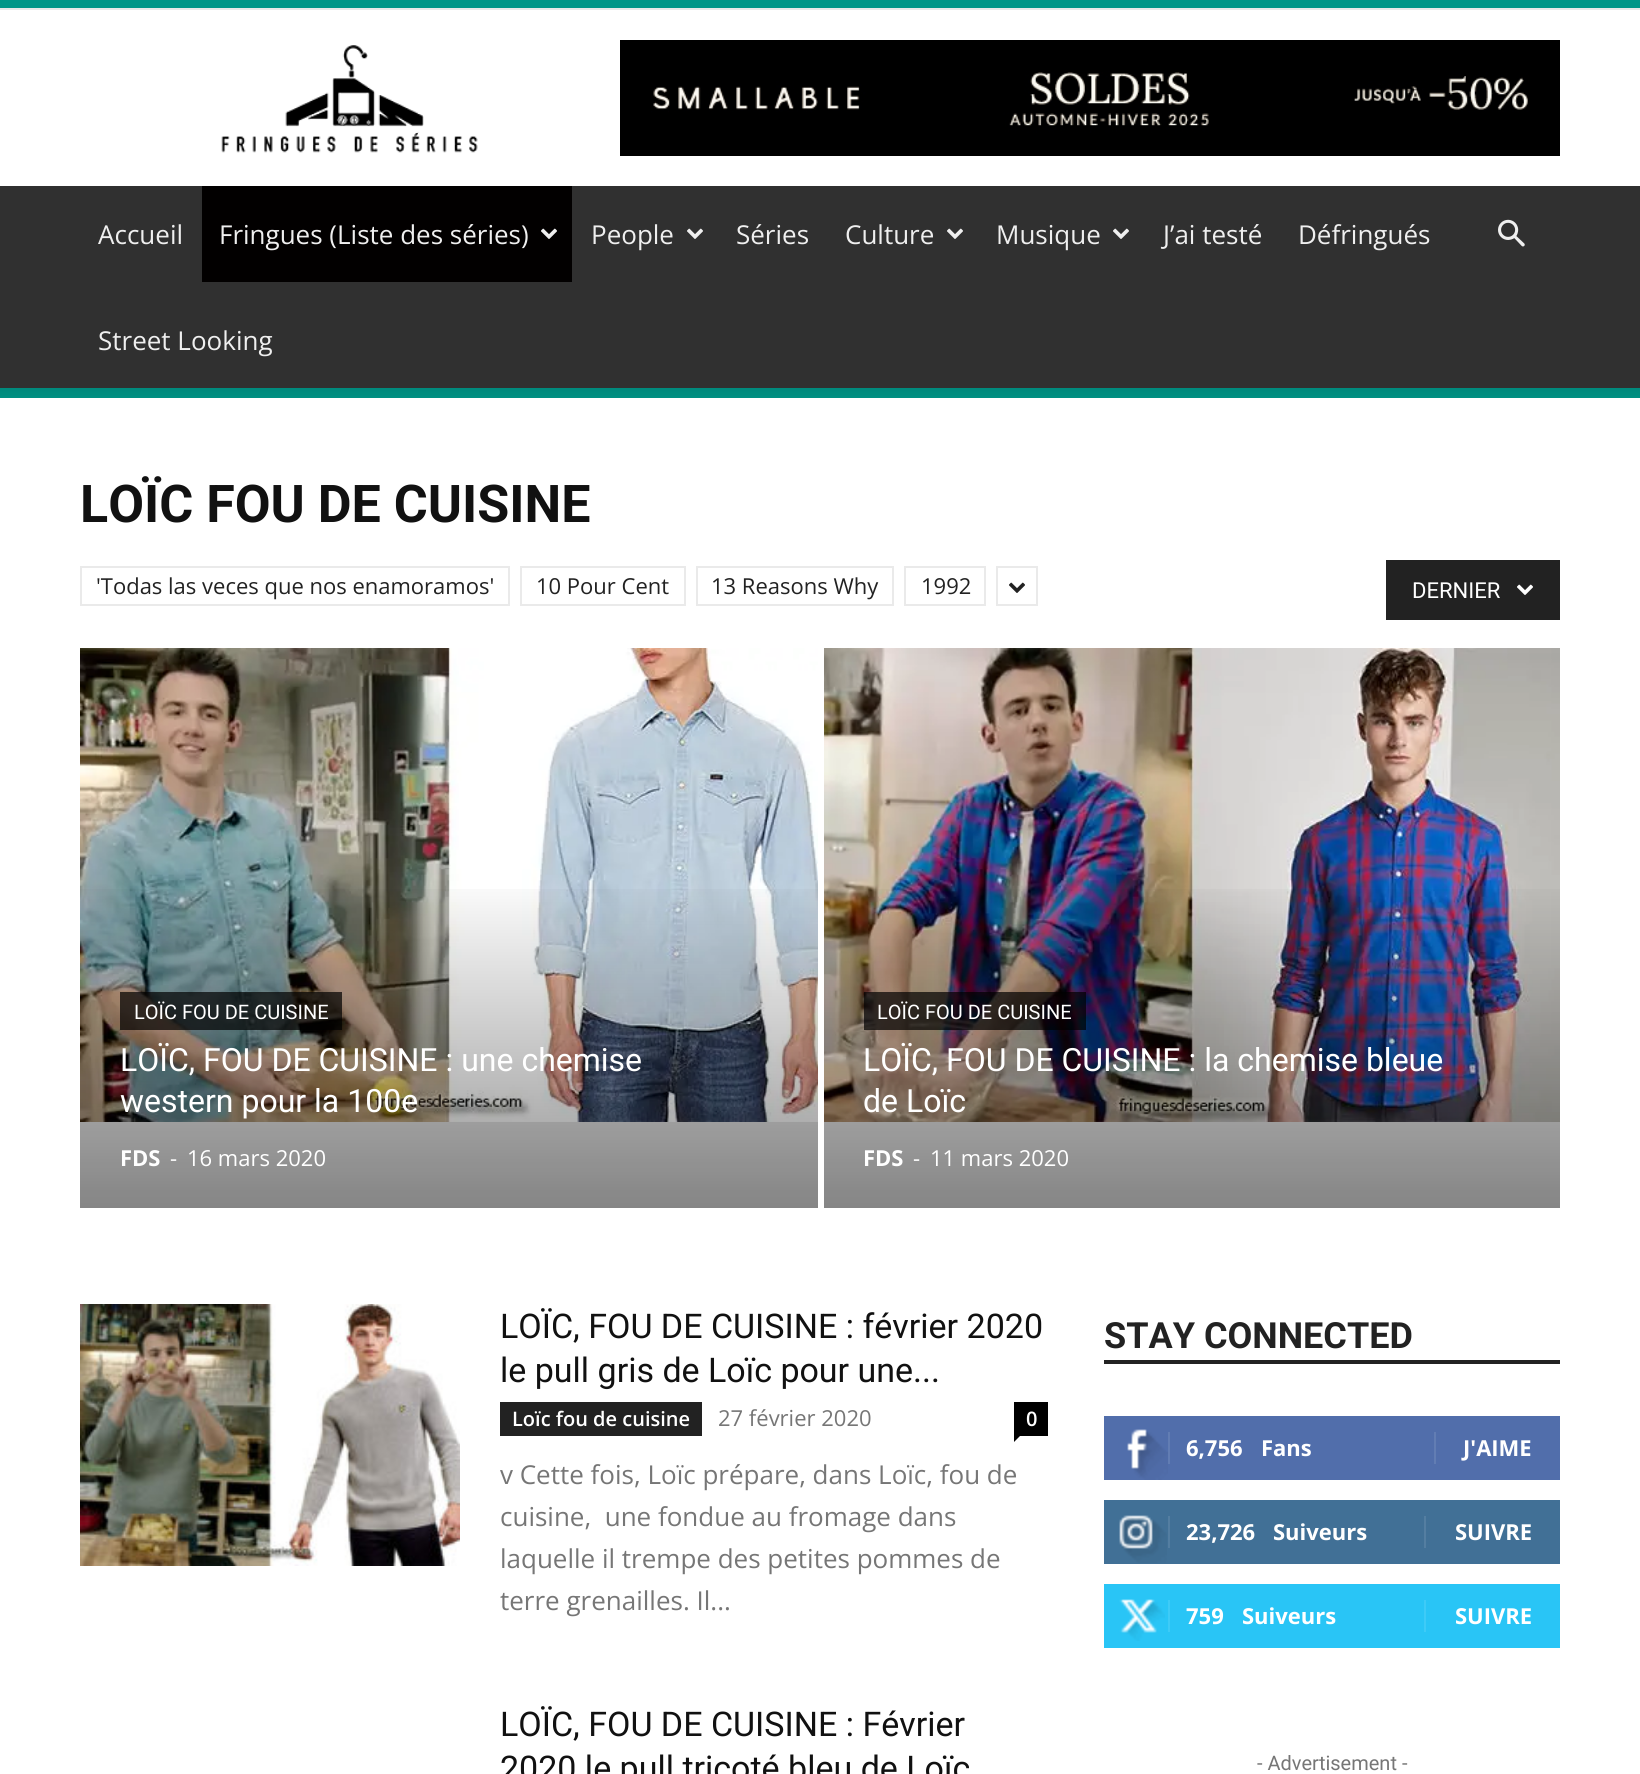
#include <cairo.h>
#include <math.h>
#include <stddef.h>

static cairo_t *ctx;

static void use_color(int r, int g, int b) {
    cairo_set_source_rgb(ctx, r / 255.0, g / 255.0, b / 255.0);
}

static void picture(const char *path, double x, double y, double w, double h) {
    cairo_surface_t *image = cairo_image_surface_create_from_png(path);
    cairo_save(ctx);
    cairo_set_source_surface(ctx, image, x, y);
    cairo_rectangle(ctx, x, y, w, h);
    cairo_fill(ctx);
    cairo_restore(ctx);
    cairo_surface_destroy(image);
}

int main(void) {
    cairo_surface_t *surface = cairo_image_surface_create(CAIRO_FORMAT_RGB24, 1640, 1774);
    ctx = cairo_create(surface);
    cairo_font_options_t *options = cairo_font_options_create();
    cairo_font_options_set_hint_metrics(options, CAIRO_HINT_METRICS_OFF);
    cairo_font_options_set_hint_style(options, CAIRO_HINT_STYLE_NONE);
    cairo_set_font_options(ctx, options);
    cairo_set_miter_limit(ctx, 4);
    cairo_pattern_t *gradient;
    use_color(255, 255, 255);
    cairo_paint(ctx);
    use_color(0, 150, 136);
    cairo_rectangle(ctx, 0, 0, 1640, 8);
    cairo_fill(ctx);
    use_color(233, 233, 233);
    cairo_rectangle(ctx, 0, 8, 1640, 2);
    cairo_fill(ctx);
    picture("img1.png", 221, 45, 257, 108);
    picture("img2.png", 620, 40, 940, 116);
    use_color(48, 48, 48);
    cairo_rectangle(ctx, 0, 186, 1640, 202);
    cairo_fill(ctx);
    cairo_select_font_face(ctx, "Open Sans", CAIRO_FONT_SLANT_NORMAL, CAIRO_FONT_WEIGHT_NORMAL);
    cairo_set_font_size(ctx, 26);
    use_color(239, 239, 239);
    cairo_move_to(ctx, 98, 244);
    cairo_show_text(ctx, "Accueil");
    use_color(2, 0, 0);
    cairo_rectangle(ctx, 202, 186, 370, 96);
    cairo_fill(ctx);
    use_color(239, 239, 239);
    cairo_move_to(ctx, 219, 244);
    cairo_show_text(ctx, "Fringues (Liste des séries)");
    picture("img3.png", 541, 228, 16, 11);
    cairo_move_to(ctx, 591, 244);
    cairo_show_text(ctx, "People");
    picture("img4.png", 687, 228, 16, 11);
    cairo_move_to(ctx, 736, 244);
    cairo_show_text(ctx, "Séries");
    cairo_move_to(ctx, 845, 244);
    cairo_show_text(ctx, "Culture");
    picture("img4.png", 947, 228, 16, 11);
    cairo_move_to(ctx, 996, 244);
    cairo_show_text(ctx, "Musique");
    picture("img4.png", 1113, 228, 16, 11);
    cairo_move_to(ctx, 1163, 244);
    cairo_show_text(ctx, "J’ai testé");
    cairo_move_to(ctx, 1298, 244);
    cairo_show_text(ctx, "Défringués");
    cairo_move_to(ctx, 98, 350);
    cairo_show_text(ctx, "Street Looking");
    picture("img5.png", 1498, 219, 27, 28);
    use_color(0, 150, 136);
    cairo_rectangle(ctx, 0, 388, 1640, 10);
    cairo_fill(ctx);
    picture("img6.png", 0, 388, 1640, 10);
    cairo_select_font_face(ctx, "Roboto", CAIRO_FONT_SLANT_NORMAL, CAIRO_FONT_WEIGHT_BOLD);
    cairo_set_font_size(ctx, 52);
    use_color(17, 17, 17);
    cairo_move_to(ctx, 80, 522);
    cairo_show_text(ctx, "LOÏC FOU DE CUISINE");
    cairo_rectangle(ctx, 81, 567, 428, 38);
    use_color(234, 234, 234);
    cairo_stroke(ctx);
    cairo_select_font_face(ctx, "Open Sans", CAIRO_FONT_SLANT_NORMAL, CAIRO_FONT_WEIGHT_NORMAL);
    cairo_set_font_size(ctx, 22);
    use_color(34, 34, 34);
    cairo_move_to(ctx, 96, 594);
    cairo_show_text(ctx, "'Todas las veces que nos enamoramos'");
    cairo_rectangle(ctx, 521, 567, 164, 38);
    use_color(234, 234, 234);
    cairo_stroke(ctx);
    use_color(34, 34, 34);
    cairo_move_to(ctx, 536, 594);
    cairo_show_text(ctx, "10 Pour Cent");
    cairo_rectangle(ctx, 697, 567, 196, 38);
    use_color(234, 234, 234);
    cairo_stroke(ctx);
    use_color(34, 34, 34);
    cairo_move_to(ctx, 711, 594);
    cairo_show_text(ctx, "13 Reasons Why");
    cairo_rectangle(ctx, 905, 567, 80, 38);
    use_color(234, 234, 234);
    cairo_stroke(ctx);
    use_color(34, 34, 34);
    cairo_move_to(ctx, 921, 594);
    cairo_show_text(ctx, "1992");
    cairo_rectangle(ctx, 997, 567, 40, 38);
    use_color(234, 234, 234);
    cairo_stroke(ctx);
    picture("img7.png", 1009, 582, 16, 11);
    use_color(34, 34, 34);
    cairo_rectangle(ctx, 1386, 560, 174, 60);
    cairo_fill(ctx);
    cairo_select_font_face(ctx, "Roboto", CAIRO_FONT_SLANT_NORMAL, CAIRO_FONT_WEIGHT_NORMAL);
    use_color(255, 255, 255);
    cairo_move_to(ctx, 1412, 598);
    cairo_show_text(ctx, "DERNIER");
    picture("img8.png", 1517, 584, 16, 11);
    use_color(229, 229, 229);
    cairo_rectangle(ctx, 80, 1122, 738, 86);
    cairo_fill(ctx);
    picture("img9.png", 80, 648, 738, 474);
    gradient = cairo_pattern_create_linear(449, 648, 449, 1208);
    cairo_pattern_add_color_stop_rgba(gradient, 0.4, 0, 0, 0, 0);
    cairo_pattern_add_color_stop_rgba(gradient, 1, 0, 0, 0, 0.42);
    cairo_set_source(ctx, gradient);
    cairo_pattern_destroy(gradient);
    cairo_rectangle(ctx, 80, 889, 738, 319);
    cairo_fill(ctx);
    cairo_set_source_rgba(ctx, 0, 0, 0, 0.7);
    cairo_rectangle(ctx, 120, 992, 222, 38);
    cairo_fill(ctx);
    cairo_set_font_size(ctx, 20);
    use_color(255, 255, 255);
    cairo_move_to(ctx, 134, 1019);
    cairo_show_text(ctx, "LOÏC FOU DE CUISINE");
    cairo_set_font_size(ctx, 32);
    cairo_move_to(ctx, 120, 1071);
    cairo_show_text(ctx, "LOÏC, FOU DE CUISINE : une chemise");
    cairo_move_to(ctx, 120, 1112);
    cairo_show_text(ctx, "western pour la 100e");
    cairo_select_font_face(ctx, "Open Sans", CAIRO_FONT_SLANT_NORMAL, CAIRO_FONT_WEIGHT_BOLD);
    cairo_set_font_size(ctx, 22);
    cairo_move_to(ctx, 120, 1166);
    cairo_show_text(ctx, "FDS");
    cairo_select_font_face(ctx, "Open Sans", CAIRO_FONT_SLANT_NORMAL, CAIRO_FONT_WEIGHT_NORMAL);
    cairo_move_to(ctx, 170, 1166);
    cairo_show_text(ctx, "-");
    cairo_move_to(ctx, 187, 1166);
    cairo_show_text(ctx, "16 mars 2020");
    use_color(229, 229, 229);
    cairo_rectangle(ctx, 824, 1122, 736, 86);
    cairo_fill(ctx);
    picture("img10.png", 824, 648, 736, 474);
    gradient = cairo_pattern_create_linear(1192, 648, 1192, 1208);
    cairo_pattern_add_color_stop_rgba(gradient, 0.4, 0, 0, 0, 0);
    cairo_pattern_add_color_stop_rgba(gradient, 1, 0, 0, 0, 0.42);
    cairo_set_source(ctx, gradient);
    cairo_pattern_destroy(gradient);
    cairo_rectangle(ctx, 824, 889, 736, 319);
    cairo_fill(ctx);
    cairo_set_source_rgba(ctx, 0, 0, 0, 0.7);
    cairo_rectangle(ctx, 864, 992, 222, 38);
    cairo_fill(ctx);
    cairo_select_font_face(ctx, "Roboto", CAIRO_FONT_SLANT_NORMAL, CAIRO_FONT_WEIGHT_NORMAL);
    cairo_set_font_size(ctx, 20);
    use_color(255, 255, 255);
    cairo_move_to(ctx, 877, 1019);
    cairo_show_text(ctx, "LOÏC FOU DE CUISINE");
    cairo_set_font_size(ctx, 32);
    cairo_move_to(ctx, 863, 1071);
    cairo_show_text(ctx, "LOÏC, FOU DE CUISINE : la chemise bleue");
    cairo_move_to(ctx, 863, 1112);
    cairo_show_text(ctx, "de Loïc");
    cairo_select_font_face(ctx, "Open Sans", CAIRO_FONT_SLANT_NORMAL, CAIRO_FONT_WEIGHT_BOLD);
    cairo_set_font_size(ctx, 22);
    cairo_move_to(ctx, 863, 1166);
    cairo_show_text(ctx, "FDS");
    cairo_select_font_face(ctx, "Open Sans", CAIRO_FONT_SLANT_NORMAL, CAIRO_FONT_WEIGHT_NORMAL);
    cairo_move_to(ctx, 913, 1166);
    cairo_show_text(ctx, "-");
    cairo_move_to(ctx, 930, 1166);
    cairo_show_text(ctx, "11 mars 2020");
    picture("img11.png", 80, 1304, 380, 262);
    cairo_select_font_face(ctx, "Roboto", CAIRO_FONT_SLANT_NORMAL, CAIRO_FONT_WEIGHT_NORMAL);
    cairo_set_font_size(ctx, 34);
    use_color(17, 17, 17);
    cairo_move_to(ctx, 500, 1338);
    cairo_show_text(ctx, "LOÏC, FOU DE CUISINE : février 2020");
    cairo_move_to(ctx, 500, 1382);
    cairo_show_text(ctx, "le pull gris de Loïc pour une...");
    use_color(34, 34, 34);
    cairo_rectangle(ctx, 500, 1402, 202, 34);
    cairo_fill(ctx);
    cairo_select_font_face(ctx, "Open Sans SemiBold", CAIRO_FONT_SLANT_NORMAL, CAIRO_FONT_WEIGHT_NORMAL);
    cairo_set_font_size(ctx, 20);
    use_color(255, 255, 255);
    cairo_move_to(ctx, 512, 1426);
    cairo_show_text(ctx, "Loïc fou de cuisine");
    cairo_select_font_face(ctx, "Open Sans", CAIRO_FONT_SLANT_NORMAL, CAIRO_FONT_WEIGHT_NORMAL);
    cairo_set_font_size(ctx, 22);
    use_color(118, 118, 118);
    cairo_move_to(ctx, 718, 1426);
    cairo_show_text(ctx, "27 février 2020");
    use_color(0, 0, 0);
    cairo_rectangle(ctx, 1014, 1402, 34, 34);
    cairo_fill(ctx);
    cairo_select_font_face(ctx, "Open Sans SemiBold", CAIRO_FONT_SLANT_NORMAL, CAIRO_FONT_WEIGHT_NORMAL);
    cairo_set_font_size(ctx, 20);
    use_color(255, 255, 255);
    cairo_move_to(ctx, 1026, 1426);
    cairo_show_text(ctx, "0");
    use_color(0, 0, 0);
    cairo_new_path(ctx);
    cairo_move_to(ctx, 1014, 1436);
    cairo_line_to(ctx, 1020, 1436);
    cairo_line_to(ctx, 1014, 1442);
    cairo_close_path(ctx);
    cairo_fill(ctx);
    cairo_select_font_face(ctx, "Open Sans", CAIRO_FONT_SLANT_NORMAL, CAIRO_FONT_WEIGHT_NORMAL);
    cairo_set_font_size(ctx, 26);
    use_color(118, 118, 118);
    cairo_move_to(ctx, 500, 1484);
    cairo_show_text(ctx, "v Cette fois, Loïc prépare, dans Loïc, fou de");
    cairo_move_to(ctx, 500, 1526);
    cairo_show_text(ctx, "cuisine,  une fondue au fromage dans");
    cairo_move_to(ctx, 500, 1568);
    cairo_show_text(ctx, "laquelle il trempe des petites pommes de");
    cairo_move_to(ctx, 500, 1610);
    cairo_show_text(ctx, "terre grenailles. Il...");
    cairo_select_font_face(ctx, "Roboto", CAIRO_FONT_SLANT_NORMAL, CAIRO_FONT_WEIGHT_NORMAL);
    cairo_set_font_size(ctx, 34);
    use_color(17, 17, 17);
    cairo_move_to(ctx, 500, 1736);
    cairo_show_text(ctx, "LOÏC, FOU DE CUISINE : Février");
    cairo_move_to(ctx, 500, 1780);
    cairo_show_text(ctx, "2020 le pull tricoté bleu de Loïc");
    use_color(34, 34, 34);
    cairo_rectangle(ctx, 1104, 1360, 456, 4);
    cairo_fill(ctx);
    cairo_select_font_face(ctx, "Roboto", CAIRO_FONT_SLANT_NORMAL, CAIRO_FONT_WEIGHT_BOLD);
    cairo_set_font_size(ctx, 36);
    cairo_move_to(ctx, 1104, 1348);
    cairo_show_text(ctx, "STAY CONNECTED");
    use_color(81, 110, 171);
    cairo_rectangle(ctx, 1104, 1416, 456, 64);
    cairo_fill(ctx);
    picture("img12.png", 1127, 1429, 41, 51);
    use_color(98, 125, 179);
    cairo_rectangle(ctx, 1168, 1432, 2, 32);
    cairo_fill(ctx);
    cairo_select_font_face(ctx, "Open Sans", CAIRO_FONT_SLANT_NORMAL, CAIRO_FONT_WEIGHT_BOLD);
    cairo_set_font_size(ctx, 22);
    use_color(255, 255, 255);
    cairo_move_to(ctx, 1186, 1456);
    cairo_show_text(ctx, "6,756");
    cairo_move_to(ctx, 1261, 1456);
    cairo_show_text(ctx, "Fans");
    use_color(98, 125, 179);
    cairo_rectangle(ctx, 1434, 1432, 2, 32);
    cairo_fill(ctx);
    use_color(255, 255, 255);
    cairo_move_to(ctx, 1463, 1456);
    cairo_show_text(ctx, "J'AIME");
    use_color(65, 112, 150);
    cairo_rectangle(ctx, 1104, 1500, 456, 64);
    cairo_fill(ctx);
    picture("img13.png", 1119, 1515, 48, 48);
    use_color(84, 126, 161);
    cairo_rectangle(ctx, 1168, 1516, 2, 32);
    cairo_fill(ctx);
    use_color(255, 255, 255);
    cairo_move_to(ctx, 1186, 1540);
    cairo_show_text(ctx, "23,726");
    cairo_move_to(ctx, 1273, 1540);
    cairo_show_text(ctx, "Suiveurs");
    use_color(84, 126, 161);
    cairo_rectangle(ctx, 1424, 1516, 2, 32);
    cairo_fill(ctx);
    use_color(255, 255, 255);
    cairo_move_to(ctx, 1455, 1540);
    cairo_show_text(ctx, "SUIVRE");
    use_color(41, 197, 246);
    cairo_rectangle(ctx, 1104, 1584, 456, 64);
    cairo_fill(ctx);
    picture("img14.png", 1119, 1599, 46, 42);
    use_color(62, 203, 247);
    cairo_rectangle(ctx, 1168, 1600, 2, 32);
    cairo_fill(ctx);
    use_color(255, 255, 255);
    cairo_move_to(ctx, 1186, 1624);
    cairo_show_text(ctx, "759");
    cairo_move_to(ctx, 1242, 1624);
    cairo_show_text(ctx, "Suiveurs");
    use_color(62, 203, 247);
    cairo_rectangle(ctx, 1424, 1600, 2, 32);
    cairo_fill(ctx);
    use_color(255, 255, 255);
    cairo_move_to(ctx, 1455, 1624);
    cairo_show_text(ctx, "SUIVRE");
    cairo_select_font_face(ctx, "Roboto", CAIRO_FONT_SLANT_NORMAL, CAIRO_FONT_WEIGHT_NORMAL);
    cairo_set_font_size(ctx, 20);
    use_color(118, 118, 118);
    cairo_move_to(ctx, 1257, 1770);
    cairo_show_text(ctx, "- Advertisement -");
    cairo_surface_write_to_png(surface, "result.png");
    cairo_font_options_destroy(options);
    cairo_destroy(ctx);
    cairo_surface_destroy(surface);
    return 0;
}
